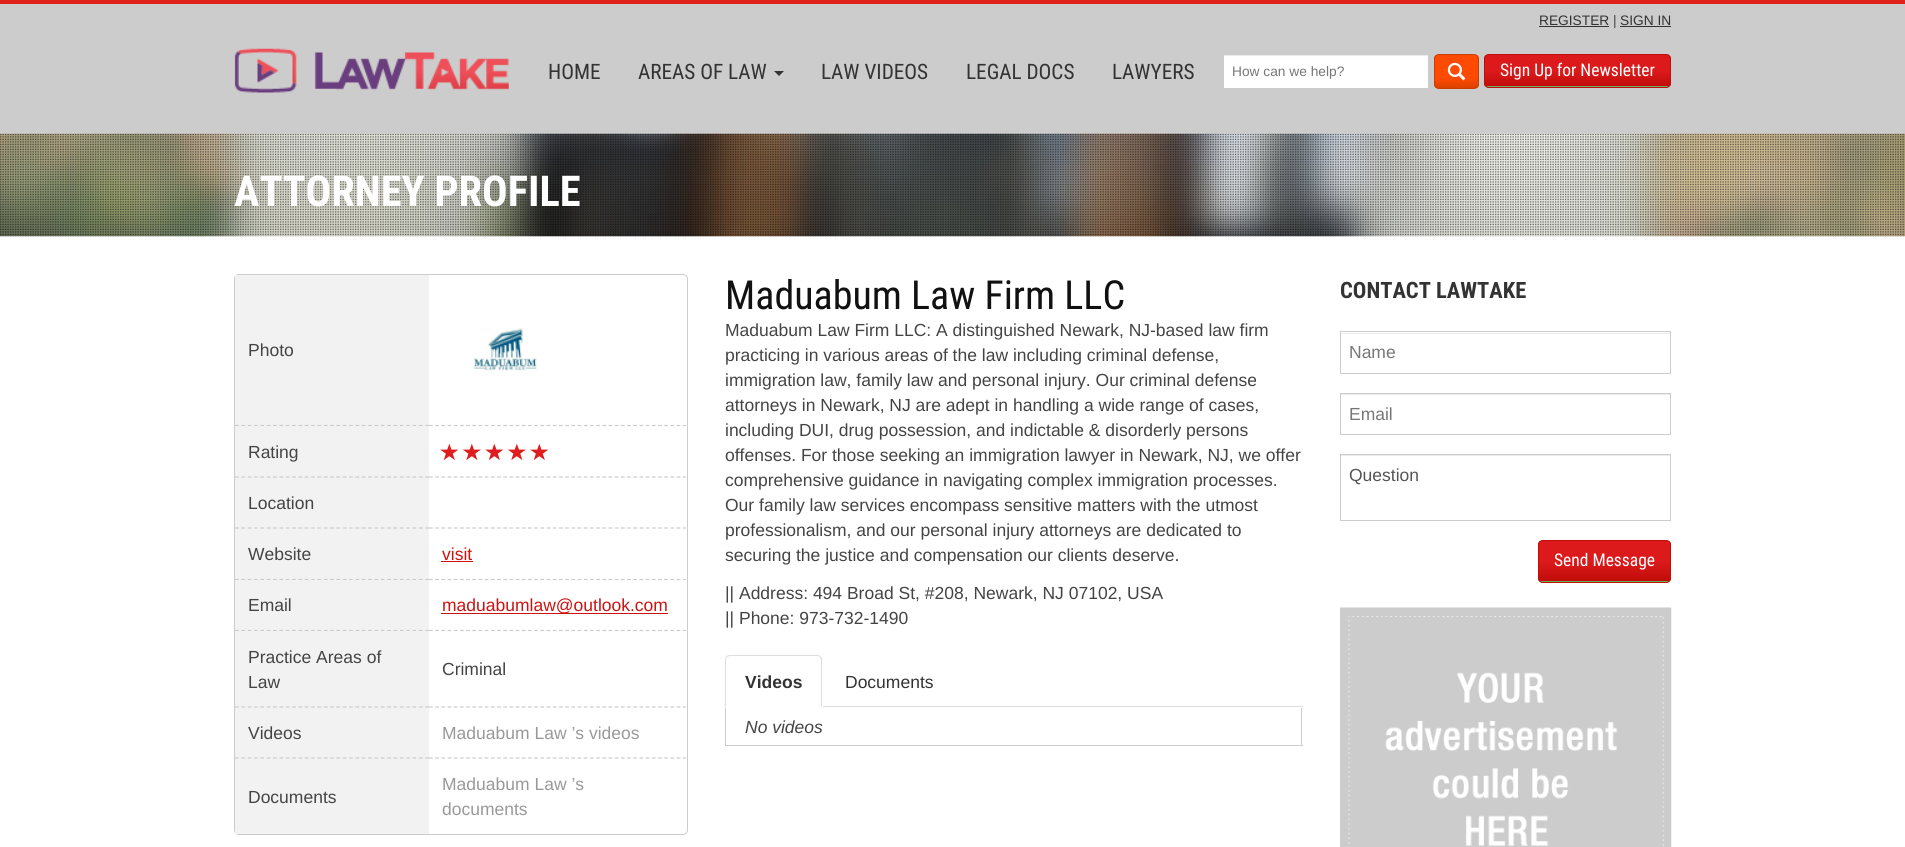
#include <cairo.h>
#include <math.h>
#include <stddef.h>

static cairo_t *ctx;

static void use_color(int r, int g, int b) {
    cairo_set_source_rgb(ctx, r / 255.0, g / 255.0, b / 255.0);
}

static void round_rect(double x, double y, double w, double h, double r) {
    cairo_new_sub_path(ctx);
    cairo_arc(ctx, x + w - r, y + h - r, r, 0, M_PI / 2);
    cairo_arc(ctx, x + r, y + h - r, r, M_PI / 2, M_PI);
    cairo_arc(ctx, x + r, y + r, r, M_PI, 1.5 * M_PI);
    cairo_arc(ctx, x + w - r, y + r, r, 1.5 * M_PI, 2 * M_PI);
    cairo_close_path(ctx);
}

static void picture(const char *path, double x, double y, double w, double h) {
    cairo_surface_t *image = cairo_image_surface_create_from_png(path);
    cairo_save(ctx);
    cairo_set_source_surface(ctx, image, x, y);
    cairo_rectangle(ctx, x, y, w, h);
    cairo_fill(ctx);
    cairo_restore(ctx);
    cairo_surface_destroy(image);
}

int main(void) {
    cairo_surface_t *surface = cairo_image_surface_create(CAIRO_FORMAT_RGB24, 1905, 847);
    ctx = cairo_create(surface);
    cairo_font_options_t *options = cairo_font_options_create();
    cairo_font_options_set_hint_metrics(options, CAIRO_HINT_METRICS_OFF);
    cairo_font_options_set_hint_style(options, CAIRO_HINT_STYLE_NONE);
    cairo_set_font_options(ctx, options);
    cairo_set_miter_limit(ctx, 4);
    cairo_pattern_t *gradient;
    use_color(255, 255, 255);
    cairo_paint(ctx);
    use_color(204, 204, 204);
    cairo_rectangle(ctx, 0, 4, 1905, 130);
    cairo_fill(ctx);
    use_color(223, 33, 28);
    cairo_rectangle(ctx, 0, 0, 1905, 4);
    cairo_fill(ctx);
    cairo_select_font_face(ctx, "Liberation Sans", CAIRO_FONT_SLANT_NORMAL, CAIRO_FONT_WEIGHT_NORMAL);
    cairo_set_font_size(ctx, 13.75);
    use_color(51, 51, 51);
    cairo_move_to(ctx, 1539, 25);
    cairo_show_text(ctx, "REGISTER");
    cairo_rectangle(ctx, 1539, 26, 70, 1);
    cairo_fill(ctx);
    use_color(68, 68, 68);
    cairo_move_to(ctx, 1613, 25);
    cairo_show_text(ctx, "|");
    use_color(51, 51, 51);
    cairo_move_to(ctx, 1620, 25);
    cairo_show_text(ctx, "SIGN IN");
    cairo_rectangle(ctx, 1620, 26, 51, 1);
    cairo_fill(ctx);
    picture("img1.png", 234, 48, 275, 45);
    cairo_select_font_face(ctx, "Roboto Condensed", CAIRO_FONT_SLANT_NORMAL, CAIRO_FONT_WEIGHT_NORMAL);
    cairo_set_font_size(ctx, 21.25);
    cairo_move_to(ctx, 548, 79);
    cairo_show_text(ctx, "HOME");
    cairo_move_to(ctx, 638, 79);
    cairo_show_text(ctx, "AREAS OF LAW");
    cairo_new_path(ctx);
    cairo_move_to(ctx, 774, 71);
    cairo_line_to(ctx, 784, 71);
    cairo_line_to(ctx, 779, 76);
    cairo_close_path(ctx);
    cairo_fill(ctx);
    cairo_move_to(ctx, 821, 79);
    cairo_show_text(ctx, "LAW VIDEOS");
    cairo_move_to(ctx, 966, 79);
    cairo_show_text(ctx, "LEGAL DOCS");
    cairo_move_to(ctx, 1112, 79);
    cairo_show_text(ctx, "LAWYERS");
    use_color(255, 255, 255);
    cairo_rectangle(ctx, 1224, 56, 204, 32);
    cairo_fill(ctx);
    use_color(236, 236, 236);
    cairo_rectangle(ctx, 1224, 55, 204, 1);
    cairo_fill(ctx);
    cairo_select_font_face(ctx, "Liberation Sans", CAIRO_FONT_SLANT_NORMAL, CAIRO_FONT_WEIGHT_NORMAL);
    cairo_set_font_size(ctx, 13.75);
    use_color(119, 119, 119);
    cairo_move_to(ctx, 1232, 76);
    cairo_show_text(ctx, "How can we help?");
    cairo_save(ctx);
    round_rect(1434, 54, 45, 35, 5);
    cairo_clip(ctx);
    gradient = cairo_pattern_create_linear(1456, 55, 1456, 88);
    cairo_pattern_add_color_stop_rgba(gradient, 0.7, 1, 0.29, 0.008, 1);
    cairo_pattern_add_color_stop_rgba(gradient, 1, 0.855, 0.263, 0, 1);
    cairo_set_source(ctx, gradient);
    cairo_pattern_destroy(gradient);
    cairo_rectangle(ctx, 1434, 55, 45, 33);
    cairo_fill(ctx);
    cairo_restore(ctx);
    round_rect(1434.5, 54.5, 44, 34, 4.5);
    use_color(204, 62, 0);
    cairo_set_line_width(ctx, 1);
    cairo_stroke(ctx);
    picture("img2.png", 1447, 62, 19, 19);
    use_color(92, 184, 92);
    round_rect(1484, 54, 187, 34, 5);
    cairo_fill(ctx);
    cairo_save(ctx);
    round_rect(1484, 54, 187, 34, 5);
    cairo_clip(ctx);
    gradient = cairo_pattern_create_linear(1578, 55, 1578, 86);
    cairo_pattern_add_color_stop_rgba(gradient, 0.5, 0.863, 0.102, 0.11, 1);
    cairo_pattern_add_color_stop_rgba(gradient, 1, 0.757, 0.047, 0.039, 1);
    cairo_set_source(ctx, gradient);
    cairo_pattern_destroy(gradient);
    cairo_rectangle(ctx, 1484, 55, 187, 31);
    cairo_fill(ctx);
    cairo_restore(ctx);
    round_rect(1484.5, 54.5, 186, 33, 4.5);
    use_color(193, 12, 10);
    cairo_stroke(ctx);
    cairo_select_font_face(ctx, "Roboto Condensed", CAIRO_FONT_SLANT_NORMAL, CAIRO_FONT_WEIGHT_NORMAL);
    cairo_set_font_size(ctx, 17.5);
    use_color(255, 255, 255);
    cairo_move_to(ctx, 1500, 76);
    cairo_show_text(ctx, "Sign Up for Newsletter");
    picture("img3.png", 0, 133, 1905, 104);
    picture("img4.png", 0, 133, 1905, 104);
    cairo_select_font_face(ctx, "Roboto Condensed", CAIRO_FONT_SLANT_NORMAL, CAIRO_FONT_WEIGHT_BOLD);
    cairo_set_font_size(ctx, 42.5);
    cairo_move_to(ctx, 234, 206);
    cairo_show_text(ctx, "ATTORNEY PROFILE");
    round_rect(234.5, 274.5, 453, 560, 4.5);
    use_color(204, 204, 204);
    cairo_stroke(ctx);
    use_color(242, 242, 242);
    cairo_rectangle(ctx, 235, 275, 194, 151);
    cairo_fill(ctx);
    cairo_new_path(ctx);
    cairo_move_to(ctx, 235, 425.5);
    cairo_line_to(ctx, 429, 425.5);
    use_color(204, 204, 204);
    cairo_set_line_width(ctx, 1.2);
    cairo_set_dash(ctx, (double[]){3.75, 2.59}, 2, 0);
    cairo_stroke(ctx);
    cairo_select_font_face(ctx, "Liberation Sans", CAIRO_FONT_SLANT_NORMAL, CAIRO_FONT_WEIGHT_NORMAL);
    cairo_set_font_size(ctx, 17.5);
    use_color(68, 68, 68);
    cairo_move_to(ctx, 248, 356);
    cairo_show_text(ctx, "Photo");
    cairo_new_path(ctx);
    cairo_move_to(ctx, 429, 425.5);
    cairo_line_to(ctx, 686, 425.5);
    use_color(204, 204, 204);
    cairo_set_dash(ctx, (double[]){3.75, 2.44}, 2, 0);
    cairo_stroke(ctx);
    picture("img5.png", 473, 328, 64, 43);
    use_color(242, 242, 242);
    cairo_rectangle(ctx, 235, 426, 194, 154);
    cairo_fill(ctx);
    cairo_new_path(ctx);
    cairo_move_to(ctx, 235, 477);
    cairo_line_to(ctx, 429, 477);
    use_color(204, 204, 204);
    cairo_set_dash(ctx, (double[]){3.75, 2.59}, 2, 0);
    cairo_stroke(ctx);
    use_color(68, 68, 68);
    cairo_move_to(ctx, 248, 458);
    cairo_show_text(ctx, "Rating");
    cairo_new_path(ctx);
    cairo_move_to(ctx, 429, 477);
    cairo_line_to(ctx, 686, 477);
    use_color(204, 204, 204);
    cairo_set_dash(ctx, (double[]){3.75, 2.44}, 2, 0);
    cairo_stroke(ctx);
    picture("img6.png", 440, 443, 19, 17);
    picture("img7.png", 462, 443, 19, 17);
    picture("img6.png", 485, 443, 19, 17);
    picture("img7.png", 507, 443, 19, 17);
    picture("img6.png", 530, 443, 19, 17);
    cairo_new_path(ctx);
    cairo_move_to(ctx, 235, 528);
    cairo_line_to(ctx, 429, 528);
    cairo_set_dash(ctx, (double[]){3.75, 2.59}, 2, 0);
    cairo_stroke(ctx);
    use_color(68, 68, 68);
    cairo_move_to(ctx, 248, 509);
    cairo_show_text(ctx, "Location");
    cairo_new_path(ctx);
    cairo_move_to(ctx, 429, 528);
    cairo_line_to(ctx, 686, 528);
    use_color(204, 204, 204);
    cairo_set_dash(ctx, (double[]){3.75, 2.44}, 2, 0);
    cairo_stroke(ctx);
    cairo_new_path(ctx);
    cairo_move_to(ctx, 235, 579.5);
    cairo_line_to(ctx, 429, 579.5);
    cairo_set_dash(ctx, (double[]){3.75, 2.59}, 2, 0);
    cairo_stroke(ctx);
    use_color(68, 68, 68);
    cairo_move_to(ctx, 248, 560);
    cairo_show_text(ctx, "Website");
    cairo_new_path(ctx);
    cairo_move_to(ctx, 429, 579.5);
    cairo_line_to(ctx, 686, 579.5);
    use_color(204, 204, 204);
    cairo_set_dash(ctx, (double[]){3.75, 2.44}, 2, 0);
    cairo_stroke(ctx);
    use_color(204, 18, 17);
    cairo_move_to(ctx, 442, 560);
    cairo_show_text(ctx, "visit");
    cairo_rectangle(ctx, 441, 561, 32, 1);
    cairo_fill(ctx);
    use_color(242, 242, 242);
    cairo_rectangle(ctx, 235, 580, 194, 51);
    cairo_fill(ctx);
    cairo_new_path(ctx);
    cairo_move_to(ctx, 235, 630.5);
    cairo_line_to(ctx, 429, 630.5);
    use_color(204, 204, 204);
    cairo_set_dash(ctx, (double[]){3.75, 2.59}, 2, 0);
    cairo_stroke(ctx);
    use_color(68, 68, 68);
    cairo_move_to(ctx, 248, 611);
    cairo_show_text(ctx, "Email");
    cairo_new_path(ctx);
    cairo_move_to(ctx, 429, 630.5);
    cairo_line_to(ctx, 686, 630.5);
    use_color(204, 204, 204);
    cairo_set_dash(ctx, (double[]){3.75, 2.44}, 2, 0);
    cairo_stroke(ctx);
    use_color(204, 18, 17);
    cairo_rectangle(ctx, 441, 613, 227, 1);
    cairo_fill(ctx);
    cairo_move_to(ctx, 442, 611);
    cairo_show_text(ctx, "maduabumlaw@outlook.com");
    use_color(242, 242, 242);
    cairo_rectangle(ctx, 235, 631, 194, 203);
    cairo_fill(ctx);
    cairo_new_path(ctx);
    cairo_move_to(ctx, 235, 707);
    cairo_line_to(ctx, 429, 707);
    use_color(204, 204, 204);
    cairo_set_dash(ctx, (double[]){3.75, 2.59}, 2, 0);
    cairo_stroke(ctx);
    use_color(68, 68, 68);
    cairo_move_to(ctx, 248, 663);
    cairo_show_text(ctx, "Practice Areas of");
    cairo_move_to(ctx, 248, 688);
    cairo_show_text(ctx, "Law");
    cairo_new_path(ctx);
    cairo_move_to(ctx, 429, 707);
    cairo_line_to(ctx, 686, 707);
    use_color(204, 204, 204);
    cairo_set_dash(ctx, (double[]){3.75, 2.44}, 2, 0);
    cairo_stroke(ctx);
    use_color(68, 68, 68);
    cairo_move_to(ctx, 442, 675);
    cairo_show_text(ctx, "Criminal");
    cairo_new_path(ctx);
    cairo_move_to(ctx, 235, 758);
    cairo_line_to(ctx, 429, 758);
    use_color(204, 204, 204);
    cairo_set_dash(ctx, (double[]){3.75, 2.59}, 2, 0);
    cairo_stroke(ctx);
    use_color(68, 68, 68);
    cairo_move_to(ctx, 248, 739);
    cairo_show_text(ctx, "Videos");
    cairo_new_path(ctx);
    cairo_move_to(ctx, 429, 758);
    cairo_line_to(ctx, 686, 758);
    use_color(204, 204, 204);
    cairo_set_dash(ctx, (double[]){3.75, 2.44}, 2, 0);
    cairo_stroke(ctx);
    use_color(153, 153, 153);
    cairo_move_to(ctx, 442, 739);
    cairo_show_text(ctx, "Maduabum Law ’s videos");
    use_color(68, 68, 68);
    cairo_move_to(ctx, 248, 803);
    cairo_show_text(ctx, "Documents");
    use_color(153, 153, 153);
    cairo_move_to(ctx, 442, 790);
    cairo_show_text(ctx, "Maduabum Law ’s");
    cairo_move_to(ctx, 442, 815);
    cairo_show_text(ctx, "documents");
    cairo_select_font_face(ctx, "Roboto Condensed", CAIRO_FONT_SLANT_NORMAL, CAIRO_FONT_WEIGHT_NORMAL);
    cairo_set_font_size(ctx, 40);
    use_color(17, 17, 17);
    cairo_move_to(ctx, 725, 309);
    cairo_show_text(ctx, "Maduabum Law Firm LLC");
    cairo_select_font_face(ctx, "Liberation Sans", CAIRO_FONT_SLANT_NORMAL, CAIRO_FONT_WEIGHT_NORMAL);
    cairo_set_font_size(ctx, 17.5);
    use_color(68, 68, 68);
    cairo_move_to(ctx, 725, 336);
    cairo_show_text(ctx, "Maduabum Law Firm LLC: A distinguished Newark, NJ-based law firm");
    cairo_move_to(ctx, 725, 361);
    cairo_show_text(ctx, "practicing in various areas of the law including criminal defense,");
    cairo_move_to(ctx, 725, 386);
    cairo_show_text(ctx, "immigration law, family law and personal injury. Our criminal defense");
    cairo_move_to(ctx, 725, 411);
    cairo_show_text(ctx, "attorneys in Newark, NJ are adept in handling a wide range of cases,");
    cairo_move_to(ctx, 725, 436);
    cairo_show_text(ctx, "including DUI, drug possession, and indictable & disorderly persons");
    cairo_move_to(ctx, 725, 461);
    cairo_show_text(ctx, "offenses. For those seeking an immigration lawyer in Newark, NJ, we offer");
    cairo_move_to(ctx, 725, 486);
    cairo_show_text(ctx, "comprehensive guidance in navigating complex immigration processes.");
    cairo_move_to(ctx, 725, 511);
    cairo_show_text(ctx, "Our family law services encompass sensitive matters with the utmost");
    cairo_move_to(ctx, 725, 536);
    cairo_show_text(ctx, "professionalism, and our personal injury attorneys are dedicated to");
    cairo_move_to(ctx, 725, 561);
    cairo_show_text(ctx, "securing the justice and compensation our clients deserve.");
    cairo_move_to(ctx, 725, 599);
    cairo_show_text(ctx, "|| Address: 494 Broad St, #208, Newark, NJ 07102, USA");
    cairo_move_to(ctx, 725, 624);
    cairo_show_text(ctx, "|| Phone: 973-732-1490");
    use_color(221, 221, 221);
    cairo_rectangle(ctx, 823, 706, 480, 1);
    cairo_fill(ctx);
    cairo_new_path(ctx);
    cairo_move_to(ctx, 730, 655);
    cairo_curve_to(ctx, 728, 655, 727, 656, 726, 656);
    cairo_line_to(ctx, 727, 657);
    cairo_line_to(ctx, 730, 656);
    cairo_line_to(ctx, 818, 656);
    cairo_line_to(ctx, 820, 657);
    cairo_line_to(ctx, 821, 657);
    cairo_curve_to(ctx, 820, 656, 819, 655, 818, 655);
    cairo_close_path(ctx);
    cairo_fill(ctx);
    cairo_new_path(ctx);
    cairo_move_to(ctx, 821, 657);
    cairo_curve_to(ctx, 822, 657, 822, 659, 822, 660);
    cairo_line_to(ctx, 822, 707);
    cairo_line_to(ctx, 821, 706);
    cairo_line_to(ctx, 821, 660);
    cairo_line_to(ctx, 820, 657);
    cairo_close_path(ctx);
    cairo_fill(ctx);
    cairo_new_path(ctx);
    cairo_move_to(ctx, 725, 708);
    cairo_line_to(ctx, 726, 706);
    cairo_line_to(ctx, 726, 660);
    cairo_curve_to(ctx, 726, 659, 726, 658, 727, 657);
    cairo_line_to(ctx, 726, 656);
    cairo_curve_to(ctx, 726, 657, 725, 658, 725, 660);
    cairo_close_path(ctx);
    cairo_fill(ctx);
    cairo_select_font_face(ctx, "Liberation Sans", CAIRO_FONT_SLANT_NORMAL, CAIRO_FONT_WEIGHT_BOLD);
    use_color(51, 51, 51);
    cairo_move_to(ctx, 745, 688);
    cairo_show_text(ctx, "Videos");
    cairo_select_font_face(ctx, "Liberation Sans", CAIRO_FONT_SLANT_NORMAL, CAIRO_FONT_WEIGHT_NORMAL);
    cairo_move_to(ctx, 845, 688);
    cairo_show_text(ctx, "Documents");
    use_color(204, 204, 204);
    cairo_rectangle(ctx, 1301, 708, 1, 38);
    cairo_fill(ctx);
    cairo_rectangle(ctx, 725, 745, 578, 1);
    cairo_fill(ctx);
    cairo_rectangle(ctx, 725, 708, 1, 38);
    cairo_fill(ctx);
    cairo_select_font_face(ctx, "Liberation Sans", CAIRO_FONT_SLANT_ITALIC, CAIRO_FONT_WEIGHT_NORMAL);
    use_color(68, 68, 68);
    cairo_move_to(ctx, 745, 733);
    cairo_show_text(ctx, "No videos");
    cairo_select_font_face(ctx, "Roboto Condensed", CAIRO_FONT_SLANT_NORMAL, CAIRO_FONT_WEIGHT_BOLD);
    cairo_set_font_size(ctx, 22.5);
    use_color(51, 51, 51);
    cairo_move_to(ctx, 1340, 298);
    cairo_show_text(ctx, "CONTACT LAWTAKE");
    use_color(236, 236, 236);
    cairo_rectangle(ctx, 1341, 333, 329, 1);
    cairo_fill(ctx);
    cairo_rectangle(ctx, 1340.5, 331.5, 330, 42);
    use_color(204, 204, 204);
    cairo_set_line_width(ctx, 1);
    cairo_set_dash(ctx, NULL, 0, 0);
    cairo_stroke(ctx);
    cairo_select_font_face(ctx, "Liberation Sans", CAIRO_FONT_SLANT_NORMAL, CAIRO_FONT_WEIGHT_NORMAL);
    cairo_set_font_size(ctx, 17.5);
    use_color(119, 119, 119);
    cairo_move_to(ctx, 1349, 358);
    cairo_show_text(ctx, "Name");
    use_color(236, 236, 236);
    cairo_rectangle(ctx, 1341, 394, 329, 1);
    cairo_fill(ctx);
    cairo_rectangle(ctx, 1340.5, 393.5, 330, 41);
    use_color(204, 204, 204);
    cairo_stroke(ctx);
    use_color(119, 119, 119);
    cairo_move_to(ctx, 1349, 420);
    cairo_show_text(ctx, "Email");
    use_color(236, 236, 236);
    cairo_rectangle(ctx, 1341, 455, 329, 1);
    cairo_fill(ctx);
    cairo_rectangle(ctx, 1340.5, 454.5, 330, 66);
    use_color(204, 204, 204);
    cairo_stroke(ctx);
    use_color(85, 85, 85);
    cairo_move_to(ctx, 1349, 481);
    cairo_show_text(ctx, "Question");
    use_color(92, 184, 92);
    round_rect(1538, 540, 133, 43, 5);
    cairo_fill(ctx);
    cairo_save(ctx);
    round_rect(1538, 540, 133, 43, 5);
    cairo_clip(ctx);
    gradient = cairo_pattern_create_linear(1604, 541, 1604, 581);
    cairo_pattern_add_color_stop_rgba(gradient, 0.5, 0.863, 0.102, 0.11, 1);
    cairo_pattern_add_color_stop_rgba(gradient, 1, 0.757, 0.047, 0.039, 1);
    cairo_set_source(ctx, gradient);
    cairo_pattern_destroy(gradient);
    cairo_rectangle(ctx, 1538, 541, 133, 40);
    cairo_fill(ctx);
    cairo_restore(ctx);
    round_rect(1538.5, 540.5, 132, 42, 4.5);
    use_color(193, 12, 10);
    cairo_stroke(ctx);
    cairo_select_font_face(ctx, "Roboto Condensed", CAIRO_FONT_SLANT_NORMAL, CAIRO_FONT_WEIGHT_NORMAL);
    use_color(255, 255, 255);
    cairo_move_to(ctx, 1554, 566);
    cairo_show_text(ctx, "Send Message");
    picture("img8.png", 1340, 607, 332, 240);
    cairo_surface_write_to_png(surface, "result.png");
    cairo_font_options_destroy(options);
    cairo_destroy(ctx);
    cairo_surface_destroy(surface);
    return 0;
}
